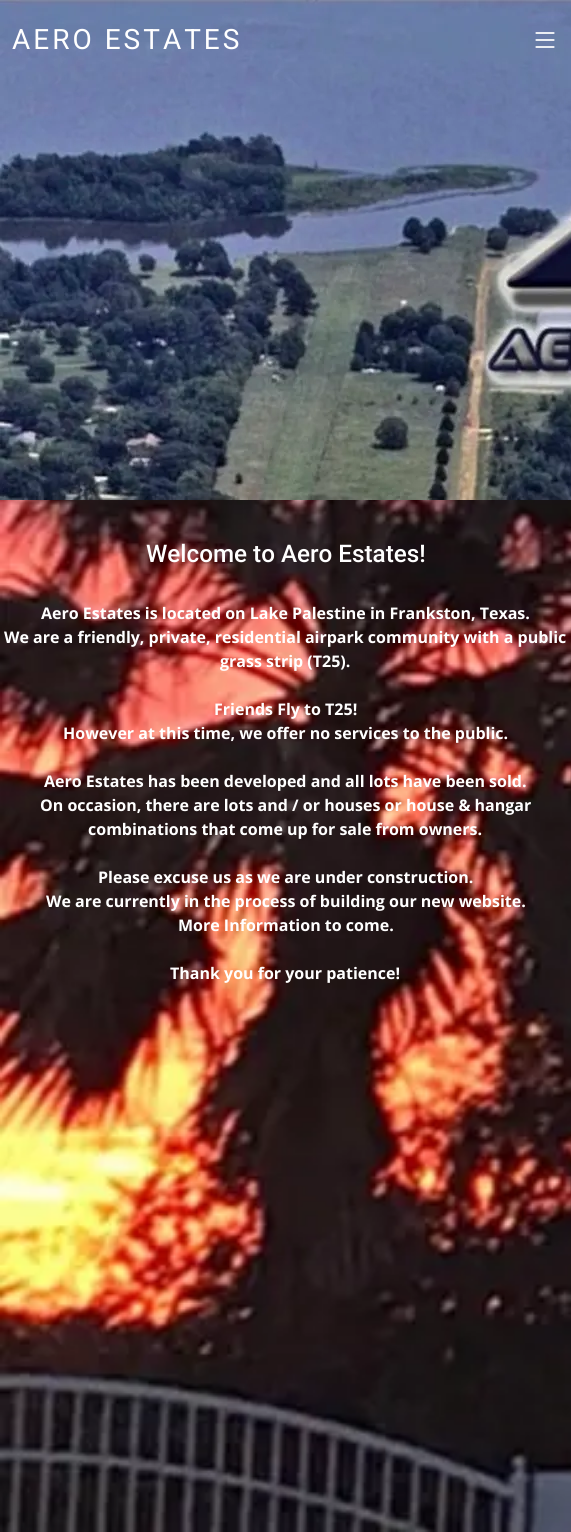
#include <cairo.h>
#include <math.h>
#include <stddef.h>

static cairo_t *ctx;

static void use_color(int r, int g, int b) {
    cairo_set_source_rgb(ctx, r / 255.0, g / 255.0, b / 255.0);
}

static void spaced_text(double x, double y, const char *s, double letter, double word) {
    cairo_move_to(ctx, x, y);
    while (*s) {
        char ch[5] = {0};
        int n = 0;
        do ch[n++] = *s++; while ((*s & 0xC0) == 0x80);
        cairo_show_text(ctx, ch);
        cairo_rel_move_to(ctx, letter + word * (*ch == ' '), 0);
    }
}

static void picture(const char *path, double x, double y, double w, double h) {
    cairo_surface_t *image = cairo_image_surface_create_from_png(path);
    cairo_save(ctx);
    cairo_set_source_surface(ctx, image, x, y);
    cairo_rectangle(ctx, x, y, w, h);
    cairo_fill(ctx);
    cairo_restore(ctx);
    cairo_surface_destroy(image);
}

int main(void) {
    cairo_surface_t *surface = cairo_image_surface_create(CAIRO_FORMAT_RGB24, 571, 1532);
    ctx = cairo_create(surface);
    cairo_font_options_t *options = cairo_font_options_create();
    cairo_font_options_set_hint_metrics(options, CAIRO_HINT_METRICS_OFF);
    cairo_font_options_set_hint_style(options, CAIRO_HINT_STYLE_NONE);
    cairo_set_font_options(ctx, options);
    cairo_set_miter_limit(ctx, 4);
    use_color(255, 255, 255);
    cairo_paint(ctx);
    picture("img1.png", 0, 500, 571, 1032);
    picture("img2.png", 0, 0, 571, 500);
    cairo_select_font_face(ctx, "Roboto", CAIRO_FONT_SLANT_NORMAL, CAIRO_FONT_WEIGHT_NORMAL);
    cairo_set_font_size(ctx, 28);
    use_color(255, 255, 255);
    spaced_text(12, 49, "AERO ESTATES", 3, 0);
    picture("img3.png", 535, 32, 20, 16);
    cairo_select_font_face(ctx, "Roboto Medium", CAIRO_FONT_SLANT_NORMAL, CAIRO_FONT_WEIGHT_NORMAL);
    cairo_set_font_size(ctx, 24.25);
    cairo_move_to(ctx, 146, 562);
    cairo_show_text(ctx, "Welcome to Aero Estates!");
    cairo_select_font_face(ctx, "Open Sans", CAIRO_FONT_SLANT_NORMAL, CAIRO_FONT_WEIGHT_BOLD);
    cairo_set_font_size(ctx, 16);
    cairo_move_to(ctx, 41, 619);
    cairo_show_text(ctx, "Aero Estates is located on Lake Palestine in Frankston, Texas.");
    cairo_move_to(ctx, 4, 643);
    cairo_show_text(ctx, "We are a friendly, private, residential airpark community with a public");
    cairo_move_to(ctx, 220, 667);
    cairo_show_text(ctx, "grass strip (T25).");
    cairo_move_to(ctx, 214, 715);
    cairo_show_text(ctx, "Friends Fly to T25!");
    cairo_move_to(ctx, 63, 739);
    cairo_show_text(ctx, "However at this time, we offer no services to the public.");
    cairo_move_to(ctx, 44, 787);
    cairo_show_text(ctx, "Aero Estates has been developed and all lots have been sold.");
    cairo_move_to(ctx, 40, 811);
    cairo_show_text(ctx, "On occasion, there are lots and / or houses or house & hangar");
    cairo_move_to(ctx, 88, 835);
    cairo_show_text(ctx, "combinations that come up for sale from owners.");
    cairo_move_to(ctx, 98, 883);
    cairo_show_text(ctx, "Please excuse us as we are under construction.");
    cairo_move_to(ctx, 46, 907);
    cairo_show_text(ctx, "We are currently in the process of building our new website.");
    cairo_move_to(ctx, 178, 931);
    cairo_show_text(ctx, "More Information to come.");
    cairo_move_to(ctx, 170, 979);
    cairo_show_text(ctx, "Thank you for your patience!");
    cairo_surface_write_to_png(surface, "result.png");
    cairo_font_options_destroy(options);
    cairo_destroy(ctx);
    cairo_surface_destroy(surface);
    return 0;
}
